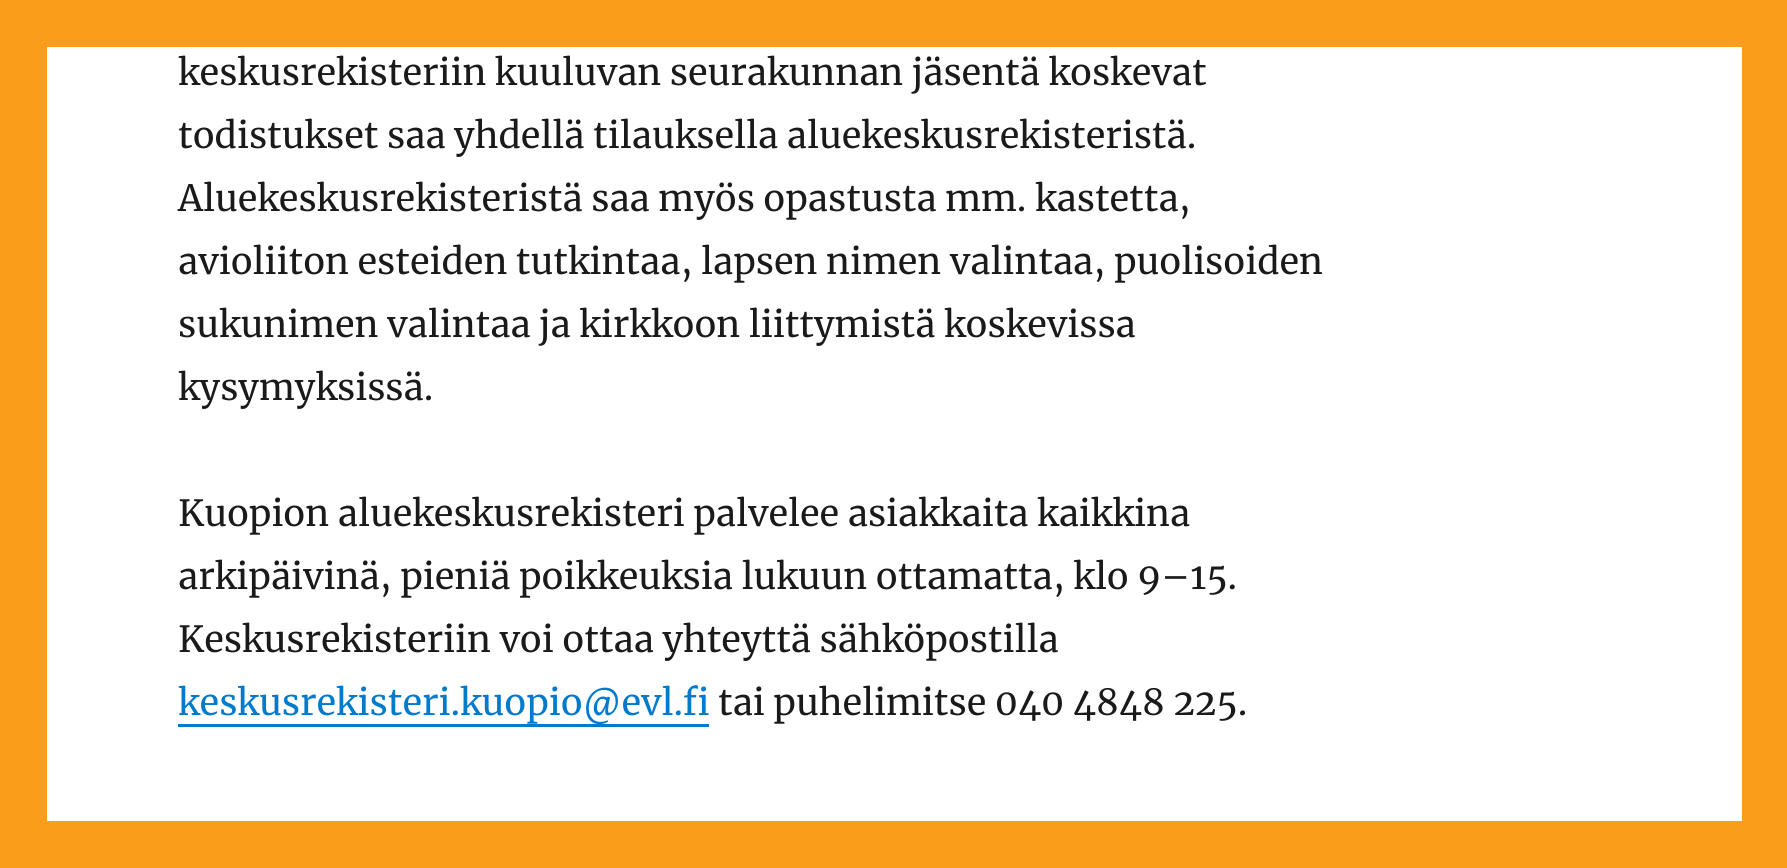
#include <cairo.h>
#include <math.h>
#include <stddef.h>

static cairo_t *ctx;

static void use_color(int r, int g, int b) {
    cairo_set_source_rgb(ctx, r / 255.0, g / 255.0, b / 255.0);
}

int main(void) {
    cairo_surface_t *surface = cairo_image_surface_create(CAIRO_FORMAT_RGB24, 1787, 868);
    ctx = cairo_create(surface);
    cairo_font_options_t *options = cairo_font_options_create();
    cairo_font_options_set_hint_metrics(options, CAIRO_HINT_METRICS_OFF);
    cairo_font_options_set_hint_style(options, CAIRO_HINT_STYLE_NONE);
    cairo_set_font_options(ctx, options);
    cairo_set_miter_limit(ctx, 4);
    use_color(249, 157, 27);
    cairo_paint(ctx);
    use_color(255, 255, 255);
    cairo_rectangle(ctx, 47, 47, 1695, 774);
    cairo_fill(ctx);
    cairo_select_font_face(ctx, "Merriweather", CAIRO_FONT_SLANT_NORMAL, CAIRO_FONT_WEIGHT_NORMAL);
    cairo_set_font_size(ctx, 36);
    use_color(26, 26, 26);
    cairo_move_to(ctx, 178, 85);
    cairo_show_text(ctx, "keskusrekisteriin kuuluvan seurakunnan jäsentä koskevat");
    cairo_move_to(ctx, 178, 148);
    cairo_show_text(ctx, "todistukset saa yhdellä tilauksella aluekeskusrekisteristä.");
    cairo_move_to(ctx, 178, 211);
    cairo_show_text(ctx, "Aluekeskusrekisteristä saa myös opastusta mm. kastetta,");
    cairo_move_to(ctx, 178, 274);
    cairo_show_text(ctx, "avioliiton esteiden tutkintaa, lapsen nimen valintaa, puolisoiden");
    cairo_move_to(ctx, 178, 337);
    cairo_show_text(ctx, "sukunimen valintaa ja kirkkoon liittymistä koskevissa");
    cairo_move_to(ctx, 178, 400);
    cairo_show_text(ctx, "kysymyksissä.");
    cairo_move_to(ctx, 178, 526);
    cairo_show_text(ctx, "Kuopion aluekeskusrekisteri palvelee asiakkaita kaikkina");
    cairo_move_to(ctx, 178, 589);
    cairo_show_text(ctx, "arkipäivinä, pieniä poikkeuksia lukuun ottamatta, klo 9–15.");
    cairo_move_to(ctx, 178, 652);
    cairo_show_text(ctx, "Keskusrekisteriin voi ottaa yhteyttä sähköpostilla");
    use_color(0, 122, 204);
    cairo_new_path(ctx);
    cairo_move_to(ctx, 178, 724);
    cairo_line_to(ctx, 178, 727);
    cairo_line_to(ctx, 709, 727);
    cairo_line_to(ctx, 709, 682);
    cairo_line_to(ctx, 709, 724);
    cairo_close_path(ctx);
    cairo_fill(ctx);
    cairo_move_to(ctx, 178, 715);
    cairo_show_text(ctx, "keskusrekisteri.kuopio@evl.fi");
    use_color(26, 26, 26);
    cairo_move_to(ctx, 718, 715);
    cairo_show_text(ctx, "tai puhelimitse 040 4848 225.");
    cairo_surface_write_to_png(surface, "result.png");
    cairo_font_options_destroy(options);
    cairo_destroy(ctx);
    cairo_surface_destroy(surface);
    return 0;
}
